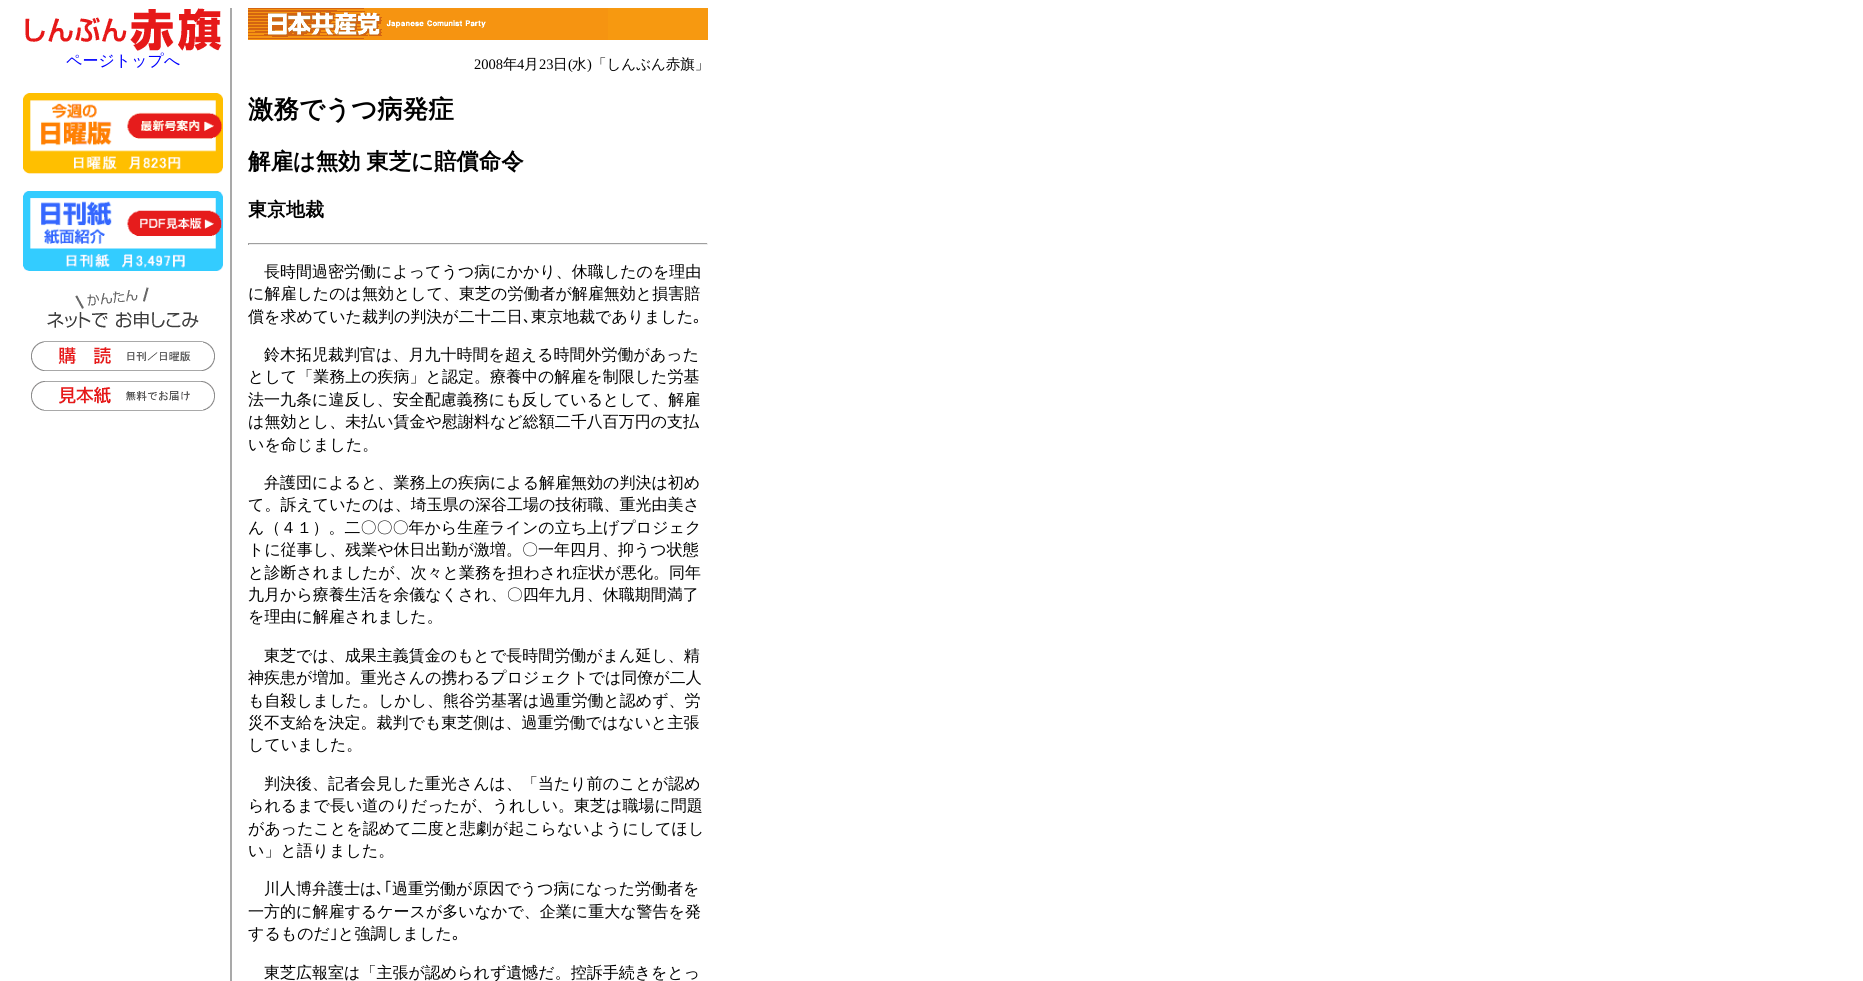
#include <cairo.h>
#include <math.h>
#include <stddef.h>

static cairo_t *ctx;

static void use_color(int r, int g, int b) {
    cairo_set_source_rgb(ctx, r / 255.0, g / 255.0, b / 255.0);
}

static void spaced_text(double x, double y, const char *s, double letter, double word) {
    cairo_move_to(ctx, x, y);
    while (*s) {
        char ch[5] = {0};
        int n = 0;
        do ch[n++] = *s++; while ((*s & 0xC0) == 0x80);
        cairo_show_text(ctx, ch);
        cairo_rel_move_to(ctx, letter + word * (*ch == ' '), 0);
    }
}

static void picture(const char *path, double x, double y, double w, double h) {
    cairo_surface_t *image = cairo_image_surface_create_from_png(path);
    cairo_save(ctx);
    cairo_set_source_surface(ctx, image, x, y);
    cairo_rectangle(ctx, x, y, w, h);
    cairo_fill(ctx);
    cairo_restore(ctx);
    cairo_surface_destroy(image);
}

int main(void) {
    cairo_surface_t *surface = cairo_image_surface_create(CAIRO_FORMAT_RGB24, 1863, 981);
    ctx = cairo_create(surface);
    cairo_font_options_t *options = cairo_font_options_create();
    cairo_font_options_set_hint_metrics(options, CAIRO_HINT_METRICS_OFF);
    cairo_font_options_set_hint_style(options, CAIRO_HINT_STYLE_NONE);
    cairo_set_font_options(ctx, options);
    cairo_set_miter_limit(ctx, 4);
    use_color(255, 255, 255);
    cairo_paint(ctx);
    use_color(169, 169, 169);
    cairo_rectangle(ctx, 230, 8, 2, 973);
    cairo_fill(ctx);
    picture("img1.png", 25, 8, 197, 43);
    cairo_select_font_face(ctx, "WenQuanYi Zen Hei Medium", CAIRO_FONT_SLANT_NORMAL, CAIRO_FONT_WEIGHT_NORMAL);
    cairo_set_font_size(ctx, 16);
    use_color(0, 0, 255);
    cairo_move_to(ctx, 66, 66);
    cairo_show_text(ctx, "ページトップへ");
    picture("img2.png", 23, 93, 200, 81);
    picture("img3.png", 23, 191, 200, 80);
    picture("img4.png", 47, 287, 152, 42);
    picture("img5.png", 31, 341, 184, 30);
    picture("img6.png", 31, 381, 184, 30);
    use_color(247, 153, 16);
    cairo_rectangle(ctx, 608, 8, 100, 32);
    cairo_fill(ctx);
    picture("img7.png", 248, 8, 360, 32);
    cairo_select_font_face(ctx, "Liberation Serif", CAIRO_FONT_SLANT_NORMAL, CAIRO_FONT_WEIGHT_NORMAL);
    cairo_set_font_size(ctx, 14.5);
    use_color(0, 0, 0);
    cairo_move_to(ctx, 474, 69);
    cairo_show_text(ctx, "2008");
    cairo_select_font_face(ctx, "WenQuanYi Zen Hei Medium", CAIRO_FONT_SLANT_NORMAL, CAIRO_FONT_WEIGHT_NORMAL);
    cairo_move_to(ctx, 503, 69);
    cairo_show_text(ctx, "年");
    cairo_select_font_face(ctx, "Liberation Serif", CAIRO_FONT_SLANT_NORMAL, CAIRO_FONT_WEIGHT_NORMAL);
    cairo_move_to(ctx, 517, 69);
    cairo_show_text(ctx, "4");
    cairo_select_font_face(ctx, "WenQuanYi Zen Hei Medium", CAIRO_FONT_SLANT_NORMAL, CAIRO_FONT_WEIGHT_NORMAL);
    cairo_move_to(ctx, 524, 69);
    cairo_show_text(ctx, "月");
    cairo_select_font_face(ctx, "Liberation Serif", CAIRO_FONT_SLANT_NORMAL, CAIRO_FONT_WEIGHT_NORMAL);
    cairo_move_to(ctx, 539, 69);
    cairo_show_text(ctx, "23");
    cairo_select_font_face(ctx, "WenQuanYi Zen Hei Medium", CAIRO_FONT_SLANT_NORMAL, CAIRO_FONT_WEIGHT_NORMAL);
    cairo_move_to(ctx, 553, 69);
    cairo_show_text(ctx, "日");
    cairo_select_font_face(ctx, "Liberation Serif", CAIRO_FONT_SLANT_NORMAL, CAIRO_FONT_WEIGHT_NORMAL);
    cairo_move_to(ctx, 568, 69);
    cairo_show_text(ctx, "(");
    cairo_select_font_face(ctx, "WenQuanYi Zen Hei Medium", CAIRO_FONT_SLANT_NORMAL, CAIRO_FONT_WEIGHT_NORMAL);
    cairo_move_to(ctx, 572, 69);
    cairo_show_text(ctx, "水");
    cairo_select_font_face(ctx, "Liberation Serif", CAIRO_FONT_SLANT_NORMAL, CAIRO_FONT_WEIGHT_NORMAL);
    cairo_move_to(ctx, 587, 69);
    cairo_show_text(ctx, ")");
    cairo_select_font_face(ctx, "WenQuanYi Zen Hei Medium", CAIRO_FONT_SLANT_NORMAL, CAIRO_FONT_WEIGHT_NORMAL);
    cairo_move_to(ctx, 592, 69);
    cairo_show_text(ctx, "「しんぶん赤旗」");
    cairo_select_font_face(ctx, "WenQuanYi Zen Hei", CAIRO_FONT_SLANT_NORMAL, CAIRO_FONT_WEIGHT_BOLD);
    cairo_set_font_size(ctx, 25.5);
    cairo_move_to(ctx, 248, 118);
    cairo_show_text(ctx, "激務でうつ病発症");
    cairo_set_font_size(ctx, 22.4);
    spaced_text(248, 169, "解雇は無効 東芝に賠償命令", 0, -1);
    cairo_set_font_size(ctx, 19);
    cairo_move_to(ctx, 248, 216);
    cairo_show_text(ctx, "東京地裁");
    use_color(159, 159, 159);
    cairo_rectangle(ctx, 248, 243, 460, 1);
    cairo_fill(ctx);
    use_color(238, 238, 238);
    cairo_rectangle(ctx, 707, 243, 1, 2);
    cairo_fill(ctx);
    cairo_rectangle(ctx, 248, 244, 460, 1);
    cairo_fill(ctx);
    use_color(159, 159, 159);
    cairo_rectangle(ctx, 248, 243, 1, 2);
    cairo_fill(ctx);
    cairo_select_font_face(ctx, "WenQuanYi Zen Hei Medium", CAIRO_FONT_SLANT_NORMAL, CAIRO_FONT_WEIGHT_NORMAL);
    cairo_set_font_size(ctx, 16);
    use_color(0, 0, 0);
    cairo_move_to(ctx, 264, 277);
    cairo_show_text(ctx, "長時間過密労働によってうつ病にかかり、休職したのを理由");
    cairo_move_to(ctx, 248, 299);
    cairo_show_text(ctx, "に解雇したのは無効として、東芝の労働者が解雇無効と損害賠");
    cairo_move_to(ctx, 248, 322);
    cairo_show_text(ctx, "償を求めていた裁判の判決が二十二日");
    cairo_select_font_face(ctx, "IPAPGothic", CAIRO_FONT_SLANT_NORMAL, CAIRO_FONT_WEIGHT_NORMAL);
    cairo_move_to(ctx, 523, 322);
    cairo_show_text(ctx, "､");
    cairo_select_font_face(ctx, "WenQuanYi Zen Hei Medium", CAIRO_FONT_SLANT_NORMAL, CAIRO_FONT_WEIGHT_NORMAL);
    cairo_move_to(ctx, 531, 322);
    cairo_show_text(ctx, "東京地裁でありました");
    cairo_select_font_face(ctx, "IPAPGothic", CAIRO_FONT_SLANT_NORMAL, CAIRO_FONT_WEIGHT_NORMAL);
    cairo_move_to(ctx, 693, 322);
    cairo_show_text(ctx, "｡");
    cairo_select_font_face(ctx, "WenQuanYi Zen Hei Medium", CAIRO_FONT_SLANT_NORMAL, CAIRO_FONT_WEIGHT_NORMAL);
    cairo_move_to(ctx, 264, 360);
    cairo_show_text(ctx, "鈴木拓児裁判官は、月九十時間を超える時間外労働があった");
    cairo_move_to(ctx, 248, 382);
    cairo_show_text(ctx, "として「業務上の疾病」と認定。療養中の解雇を制限した労基");
    cairo_move_to(ctx, 248, 405);
    cairo_show_text(ctx, "法一九条に違反し、安全配慮義務にも反しているとして、解雇");
    cairo_move_to(ctx, 248, 427);
    cairo_show_text(ctx, "は無効とし、未払い賃金や慰謝料など総額二千八百万円の支払");
    cairo_move_to(ctx, 248, 450);
    cairo_show_text(ctx, "いを命じました。");
    cairo_move_to(ctx, 264, 488);
    cairo_show_text(ctx, "弁護団によると、業務上の疾病による解雇無効の判決は初め");
    cairo_move_to(ctx, 248, 510);
    cairo_show_text(ctx, "て。訴えていたのは、埼玉県の深谷工場の技術職、重光由美さ");
    cairo_move_to(ctx, 248, 533);
    cairo_show_text(ctx, "ん（４１）。二〇〇〇年から生産ラインの立ち上げプロジェク");
    cairo_move_to(ctx, 248, 555);
    cairo_show_text(ctx, "トに従事し、残業や休日出勤が激増。〇一年四月、抑うつ状態");
    cairo_move_to(ctx, 248, 578);
    cairo_show_text(ctx, "と診断されましたが、次々と業務を担わされ症状が悪化。同年");
    cairo_move_to(ctx, 248, 600);
    cairo_show_text(ctx, "九月から療養生活を余儀なくされ、〇四年九月、休職期間満了");
    cairo_move_to(ctx, 248, 622);
    cairo_show_text(ctx, "を理由に解雇されました。");
    cairo_move_to(ctx, 264, 661);
    cairo_show_text(ctx, "東芝では、成果主義賃金のもとで長時間労働がまん延し、精");
    cairo_move_to(ctx, 248, 683);
    cairo_show_text(ctx, "神疾患が増加。重光さんの携わるプロジェクトでは同僚が二人");
    cairo_move_to(ctx, 248, 706);
    cairo_show_text(ctx, "も自殺しました。しかし、熊谷労基署は過重労働と認めず、労");
    cairo_move_to(ctx, 248, 728);
    cairo_show_text(ctx, "災不支給を決定。裁判でも東芝側は、過重労働ではないと主張");
    cairo_move_to(ctx, 248, 750);
    cairo_show_text(ctx, "していました。");
    cairo_move_to(ctx, 264, 789);
    cairo_show_text(ctx, "判決後、記者会見した重光さんは、「当たり前のことが認め");
    cairo_move_to(ctx, 248, 811);
    cairo_show_text(ctx, "られるまで長い道のりだったが、うれしい。東芝は職場に問題");
    cairo_move_to(ctx, 248, 834);
    cairo_show_text(ctx, "があったことを認めて二度と悲劇が起こらないようにしてほし");
    cairo_move_to(ctx, 248, 856);
    cairo_show_text(ctx, "い」と語りました。");
    cairo_move_to(ctx, 264, 894);
    cairo_show_text(ctx, "川人博弁護士は");
    cairo_select_font_face(ctx, "IPAPGothic", CAIRO_FONT_SLANT_NORMAL, CAIRO_FONT_WEIGHT_NORMAL);
    cairo_move_to(ctx, 376, 894);
    cairo_show_text(ctx, "､｢");
    cairo_select_font_face(ctx, "WenQuanYi Zen Hei Medium", CAIRO_FONT_SLANT_NORMAL, CAIRO_FONT_WEIGHT_NORMAL);
    cairo_move_to(ctx, 392, 894);
    cairo_show_text(ctx, "過重労働が原因でうつ病になった労働者を");
    cairo_move_to(ctx, 248, 917);
    cairo_show_text(ctx, "一方的に解雇するケースが多いなかで、企業に重大な警告を発");
    cairo_move_to(ctx, 248, 939);
    cairo_show_text(ctx, "するものだ");
    cairo_select_font_face(ctx, "IPAPGothic", CAIRO_FONT_SLANT_NORMAL, CAIRO_FONT_WEIGHT_NORMAL);
    cairo_move_to(ctx, 330, 939);
    cairo_show_text(ctx, "｣");
    cairo_select_font_face(ctx, "WenQuanYi Zen Hei Medium", CAIRO_FONT_SLANT_NORMAL, CAIRO_FONT_WEIGHT_NORMAL);
    cairo_move_to(ctx, 338, 939);
    cairo_show_text(ctx, "と強調しました");
    cairo_select_font_face(ctx, "IPAPGothic", CAIRO_FONT_SLANT_NORMAL, CAIRO_FONT_WEIGHT_NORMAL);
    cairo_move_to(ctx, 452, 939);
    cairo_show_text(ctx, "｡");
    cairo_select_font_face(ctx, "WenQuanYi Zen Hei Medium", CAIRO_FONT_SLANT_NORMAL, CAIRO_FONT_WEIGHT_NORMAL);
    cairo_move_to(ctx, 264, 978);
    cairo_show_text(ctx, "東芝広報室は「主張が認められず遺憾だ。控訴手続きをとっ");
    cairo_surface_write_to_png(surface, "result.png");
    cairo_font_options_destroy(options);
    cairo_destroy(ctx);
    cairo_surface_destroy(surface);
    return 0;
}
